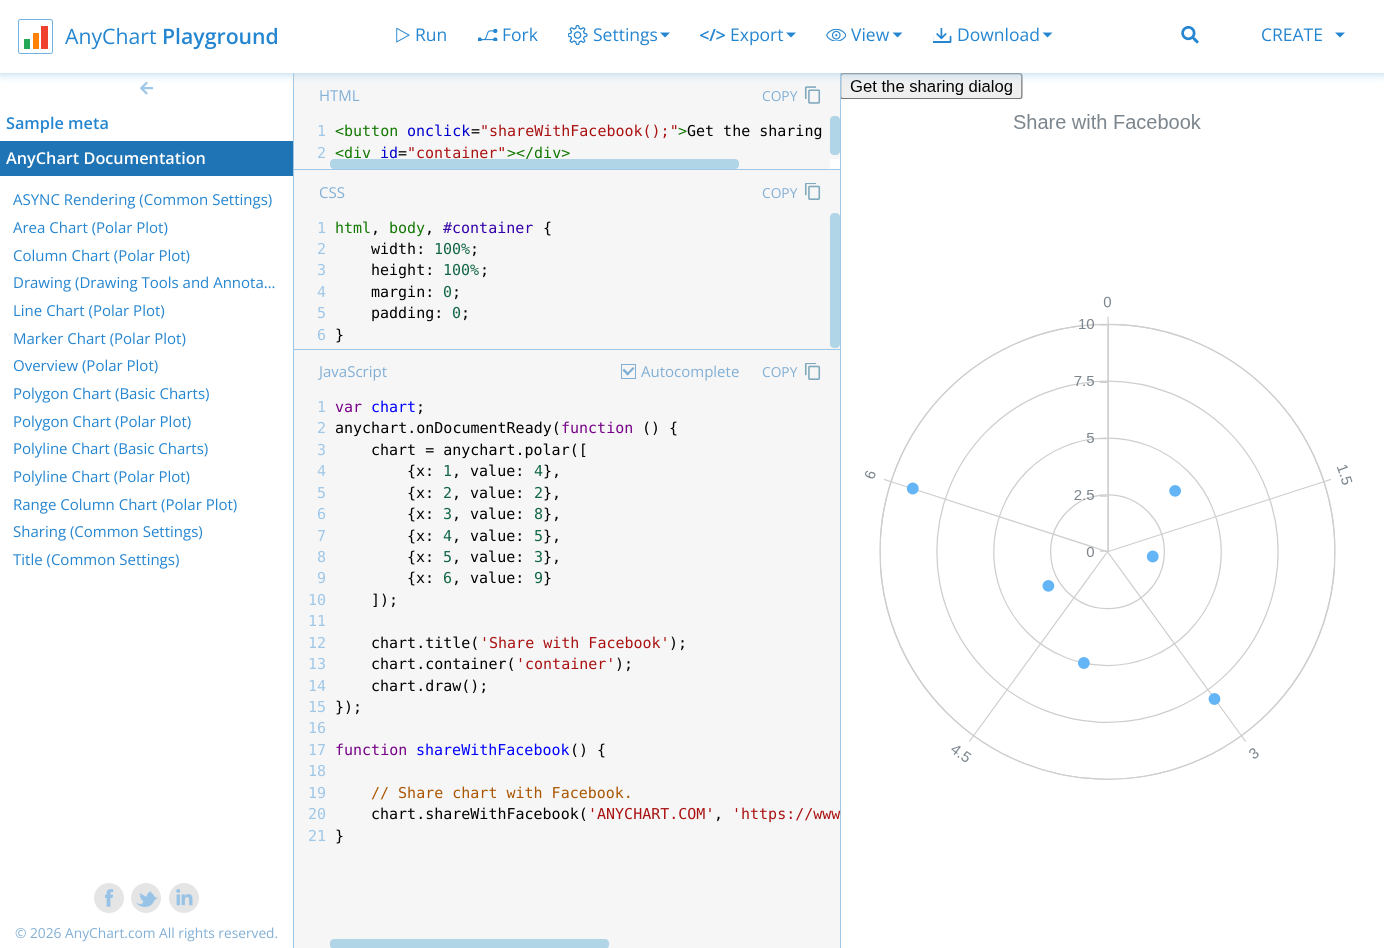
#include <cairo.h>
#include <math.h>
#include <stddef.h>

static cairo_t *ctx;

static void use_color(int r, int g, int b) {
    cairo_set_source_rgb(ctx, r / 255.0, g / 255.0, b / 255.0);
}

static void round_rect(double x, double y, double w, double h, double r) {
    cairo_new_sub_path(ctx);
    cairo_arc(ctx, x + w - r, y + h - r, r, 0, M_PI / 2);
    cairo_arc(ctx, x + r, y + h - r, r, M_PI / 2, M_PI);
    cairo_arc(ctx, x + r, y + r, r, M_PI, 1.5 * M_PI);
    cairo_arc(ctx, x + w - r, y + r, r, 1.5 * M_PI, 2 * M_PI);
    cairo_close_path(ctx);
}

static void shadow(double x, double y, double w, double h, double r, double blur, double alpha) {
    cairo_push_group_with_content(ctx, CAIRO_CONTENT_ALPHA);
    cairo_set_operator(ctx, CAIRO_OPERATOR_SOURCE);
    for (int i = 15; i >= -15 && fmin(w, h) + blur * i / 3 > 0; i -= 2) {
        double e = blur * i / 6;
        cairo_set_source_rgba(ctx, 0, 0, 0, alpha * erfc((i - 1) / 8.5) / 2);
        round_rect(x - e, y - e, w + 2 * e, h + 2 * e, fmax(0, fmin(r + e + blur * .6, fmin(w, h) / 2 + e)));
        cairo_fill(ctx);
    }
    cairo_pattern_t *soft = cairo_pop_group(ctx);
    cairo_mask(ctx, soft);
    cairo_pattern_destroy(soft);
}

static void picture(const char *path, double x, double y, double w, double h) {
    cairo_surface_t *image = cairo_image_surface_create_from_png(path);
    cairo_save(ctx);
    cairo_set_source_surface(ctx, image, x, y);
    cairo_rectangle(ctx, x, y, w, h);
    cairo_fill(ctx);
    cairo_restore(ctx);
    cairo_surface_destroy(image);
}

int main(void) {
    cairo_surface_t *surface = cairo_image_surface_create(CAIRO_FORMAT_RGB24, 1384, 948);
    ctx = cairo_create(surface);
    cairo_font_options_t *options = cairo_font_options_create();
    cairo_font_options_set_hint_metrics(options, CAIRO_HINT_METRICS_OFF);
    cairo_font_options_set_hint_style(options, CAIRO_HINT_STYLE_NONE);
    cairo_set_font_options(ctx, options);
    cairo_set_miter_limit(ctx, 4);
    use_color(255, 255, 255);
    cairo_paint(ctx);
    use_color(159, 199, 231);
    cairo_rectangle(ctx, 293, 73, 1, 875);
    cairo_fill(ctx);
    picture("img8.png", 140, 81, 14, 14);
    use_color(246, 246, 246);
    cairo_rectangle(ctx, 294, 73, 546, 96);
    cairo_fill(ctx);
    picture("img12.png", 804, 86, 17, 18);
    use_color(159, 199, 231);
    cairo_rectangle(ctx, 840, 73, 1, 875);
    cairo_fill(ctx);
    picture("img14.png", 841, 73, 512, 707);
    use_color(172, 208, 236);
    shadow(0, 0, 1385, 73, 0, 5, 1);
    use_color(255, 255, 255);
    cairo_rectangle(ctx, 0, 0, 1384, 73);
    cairo_fill(ctx);
    round_rect(18.5, 19.5, 34, 34, 2);
    use_color(112, 178, 228);
    cairo_set_line_width(ctx, 1);
    cairo_stroke(ctx);
    use_color(38, 169, 87);
    cairo_rectangle(ctx, 24, 39, 6, 10);
    cairo_fill(ctx);
    use_color(255, 130, 7);
    cairo_rectangle(ctx, 33, 33, 6, 16);
    cairo_fill(ctx);
    use_color(240, 64, 46);
    cairo_rectangle(ctx, 41, 26, 7, 23);
    cairo_fill(ctx);
    cairo_select_font_face(ctx, "Open Sans", CAIRO_FONT_SLANT_NORMAL, CAIRO_FONT_WEIGHT_NORMAL);
    cairo_set_font_size(ctx, 21.25);
    use_color(36, 133, 208);
    cairo_move_to(ctx, 65, 44);
    cairo_show_text(ctx, "AnyChart");
    cairo_select_font_face(ctx, "Open Sans SemiBold", CAIRO_FONT_SLANT_NORMAL, CAIRO_FONT_WEIGHT_NORMAL);
    cairo_move_to(ctx, 162, 44);
    cairo_show_text(ctx, "Playground");
    picture("img1.png", 396, 28, 14, 15);
    cairo_select_font_face(ctx, "Open Sans", CAIRO_FONT_SLANT_NORMAL, CAIRO_FONT_WEIGHT_NORMAL);
    cairo_set_font_size(ctx, 17.5);
    cairo_move_to(ctx, 415, 41);
    cairo_show_text(ctx, "Run");
    picture("img2.png", 478, 29, 20, 12);
    cairo_move_to(ctx, 502, 41);
    cairo_show_text(ctx, "Fork");
    picture("img3.png", 568, 25, 20, 20);
    cairo_move_to(ctx, 593, 41);
    cairo_show_text(ctx, "Settings");
    cairo_new_path(ctx);
    cairo_move_to(ctx, 660, 32.5);
    cairo_line_to(ctx, 670, 32.5);
    cairo_line_to(ctx, 665, 37.5);
    cairo_close_path(ctx);
    cairo_fill(ctx);
    picture("img4.png", 700, 29, 25, 12);
    cairo_move_to(ctx, 730, 41);
    cairo_show_text(ctx, "Export");
    cairo_new_path(ctx);
    cairo_move_to(ctx, 786, 32.5);
    cairo_line_to(ctx, 796, 32.5);
    cairo_line_to(ctx, 791, 37.5);
    cairo_close_path(ctx);
    cairo_fill(ctx);
    picture("img5.png", 826, 29, 20, 12);
    cairo_move_to(ctx, 851, 41);
    cairo_show_text(ctx, "View");
    cairo_new_path(ctx);
    cairo_move_to(ctx, 892.5, 32.5);
    cairo_line_to(ctx, 902.5, 32.5);
    cairo_line_to(ctx, 897.5, 37.5);
    cairo_close_path(ctx);
    cairo_fill(ctx);
    picture("img6.png", 933, 28, 19, 15);
    cairo_move_to(ctx, 957, 41);
    cairo_show_text(ctx, "Download");
    cairo_new_path(ctx);
    cairo_move_to(ctx, 1042.5, 32.5);
    cairo_line_to(ctx, 1052.5, 32.5);
    cairo_line_to(ctx, 1047.5, 37.5);
    cairo_close_path(ctx);
    cairo_fill(ctx);
    picture("img7.png", 1181, 25, 18, 19);
    cairo_move_to(ctx, 1261, 41);
    cairo_show_text(ctx, "CREATE");
    cairo_new_path(ctx);
    cairo_move_to(ctx, 1335, 32.5);
    cairo_line_to(ctx, 1345, 32.5);
    cairo_line_to(ctx, 1340, 37.5);
    cairo_close_path(ctx);
    cairo_fill(ctx);
    cairo_select_font_face(ctx, "Open Sans SemiBold", CAIRO_FONT_SLANT_NORMAL, CAIRO_FONT_WEIGHT_NORMAL);
    cairo_set_font_size(ctx, 16.25);
    cairo_move_to(ctx, 6, 129);
    cairo_show_text(ctx, "Sample meta");
    use_color(31, 116, 182);
    cairo_rectangle(ctx, 0, 141, 293, 35);
    cairo_fill(ctx);
    use_color(255, 255, 255);
    cairo_move_to(ctx, 6, 164);
    cairo_show_text(ctx, "AnyChart Documentation");
    cairo_select_font_face(ctx, "Open Sans", CAIRO_FONT_SLANT_NORMAL, CAIRO_FONT_WEIGHT_NORMAL);
    cairo_set_font_size(ctx, 15);
    use_color(36, 133, 208);
    cairo_move_to(ctx, 13, 205);
    cairo_show_text(ctx, "ASYNC Rendering (Common Settings)");
    cairo_move_to(ctx, 13, 233);
    cairo_show_text(ctx, "Area Chart (Polar Plot)");
    cairo_move_to(ctx, 13, 261);
    cairo_show_text(ctx, "Column Chart (Polar Plot)");
    cairo_move_to(ctx, 13, 288);
    cairo_show_text(ctx, "Drawing (Drawing Tools and Annota…");
    cairo_move_to(ctx, 13, 316);
    cairo_show_text(ctx, "Line Chart (Polar Plot)");
    cairo_move_to(ctx, 13, 344);
    cairo_show_text(ctx, "Marker Chart (Polar Plot)");
    cairo_move_to(ctx, 13, 371);
    cairo_show_text(ctx, "Overview (Polar Plot)");
    cairo_move_to(ctx, 13, 399);
    cairo_show_text(ctx, "Polygon Chart (Basic Charts)");
    cairo_move_to(ctx, 13, 427);
    cairo_show_text(ctx, "Polygon Chart (Polar Plot)");
    cairo_move_to(ctx, 13, 454);
    cairo_show_text(ctx, "Polyline Chart (Basic Charts)");
    cairo_move_to(ctx, 13, 482);
    cairo_show_text(ctx, "Polyline Chart (Polar Plot)");
    cairo_move_to(ctx, 13, 510);
    cairo_show_text(ctx, "Range Column Chart (Polar Plot)");
    cairo_move_to(ctx, 13, 537);
    cairo_show_text(ctx, "Sharing (Common Settings)");
    cairo_move_to(ctx, 13, 565);
    cairo_show_text(ctx, "Title (Common Settings)");
    use_color(229, 229, 229);
    cairo_new_path(ctx);
    cairo_arc(ctx, 109, 898, 15, 0, 2 * M_PI);
    cairo_fill(ctx);
    picture("img9.png", 105, 889, 9, 18);
    cairo_arc(ctx, 146, 898, 15, 0, 2 * M_PI);
    cairo_fill(ctx);
    picture("img10.png", 136, 891, 22, 16);
    cairo_arc(ctx, 184, 898, 15, 0, 2 * M_PI);
    cairo_fill(ctx);
    picture("img11.png", 176, 889, 17, 17);
    cairo_set_font_size(ctx, 13.75);
    use_color(129, 175, 213);
    cairo_move_to(ctx, 15, 938);
    cairo_show_text(ctx, "© 2026 AnyChart.com All rights reserved.");
    cairo_set_font_size(ctx, 15);
    cairo_move_to(ctx, 319, 101);
    cairo_show_text(ctx, "HTML");
    cairo_set_font_size(ctx, 13.75);
    cairo_move_to(ctx, 762, 101);
    cairo_show_text(ctx, "COPY");
    cairo_select_font_face(ctx, "DejaVu Sans Mono", CAIRO_FONT_SLANT_NORMAL, CAIRO_FONT_WEIGHT_NORMAL);
    cairo_set_font_size(ctx, 15);
    use_color(159, 199, 231);
    cairo_move_to(ctx, 317, 136);
    cairo_show_text(ctx, "1");
    use_color(17, 119, 0);
    cairo_move_to(ctx, 335, 136);
    cairo_show_text(ctx, "<button");
    use_color(0, 0, 204);
    cairo_move_to(ctx, 407, 136);
    cairo_show_text(ctx, "onclick");
    use_color(0, 0, 0);
    cairo_move_to(ctx, 471, 136);
    cairo_show_text(ctx, "=");
    use_color(170, 17, 17);
    cairo_move_to(ctx, 480, 136);
    cairo_show_text(ctx, "\"shareWithFacebook();\"");
    use_color(17, 119, 0);
    cairo_move_to(ctx, 678, 136);
    cairo_show_text(ctx, ">");
    use_color(0, 0, 0);
    cairo_move_to(ctx, 687, 136);
    cairo_show_text(ctx, "Get the sharing");
    use_color(159, 199, 231);
    cairo_move_to(ctx, 317, 158);
    cairo_show_text(ctx, "2");
    use_color(17, 119, 0);
    cairo_move_to(ctx, 335, 158);
    cairo_show_text(ctx, "<div");
    use_color(0, 0, 204);
    cairo_move_to(ctx, 380, 158);
    cairo_show_text(ctx, "id");
    use_color(0, 0, 0);
    cairo_move_to(ctx, 398, 158);
    cairo_show_text(ctx, "=");
    use_color(170, 17, 17);
    cairo_move_to(ctx, 407, 158);
    cairo_show_text(ctx, "\"container\"");
    use_color(17, 119, 0);
    cairo_move_to(ctx, 507, 158);
    cairo_show_text(ctx, "></div>");
    use_color(176, 213, 230);
    round_rect(830, 116, 10, 39, 4);
    cairo_fill(ctx);
    round_rect(330, 159, 409, 10, 4);
    cairo_fill(ctx);
    use_color(255, 255, 255);
    cairo_rectangle(ctx, 830, 159, 10, 10);
    cairo_fill(ctx);
    use_color(159, 199, 231);
    cairo_rectangle(ctx, 294, 169, 546, 1);
    cairo_fill(ctx);
    use_color(246, 246, 246);
    cairo_rectangle(ctx, 294, 170, 546, 179);
    cairo_fill(ctx);
    cairo_select_font_face(ctx, "Open Sans", CAIRO_FONT_SLANT_NORMAL, CAIRO_FONT_WEIGHT_NORMAL);
    use_color(129, 175, 213);
    cairo_move_to(ctx, 319, 198);
    cairo_show_text(ctx, "CSS");
    cairo_set_font_size(ctx, 13.75);
    cairo_move_to(ctx, 762, 198);
    cairo_show_text(ctx, "COPY");
    picture("img13.png", 804, 183, 17, 17);
    cairo_select_font_face(ctx, "DejaVu Sans Mono", CAIRO_FONT_SLANT_NORMAL, CAIRO_FONT_WEIGHT_NORMAL);
    cairo_set_font_size(ctx, 15);
    use_color(159, 199, 231);
    cairo_move_to(ctx, 317, 233);
    cairo_show_text(ctx, "1");
    use_color(17, 119, 0);
    cairo_move_to(ctx, 335, 233);
    cairo_show_text(ctx, "html");
    use_color(0, 0, 0);
    cairo_move_to(ctx, 371, 233);
    cairo_show_text(ctx, ",");
    use_color(17, 119, 0);
    cairo_move_to(ctx, 389, 233);
    cairo_show_text(ctx, "body");
    use_color(0, 0, 0);
    cairo_move_to(ctx, 425, 233);
    cairo_show_text(ctx, ",");
    use_color(51, 0, 170);
    cairo_move_to(ctx, 443, 233);
    cairo_show_text(ctx, "#container");
    use_color(0, 0, 0);
    cairo_move_to(ctx, 543, 233);
    cairo_show_text(ctx, "{");
    use_color(159, 199, 231);
    cairo_move_to(ctx, 317, 254);
    cairo_show_text(ctx, "2");
    use_color(0, 0, 0);
    cairo_move_to(ctx, 371, 254);
    cairo_show_text(ctx, "width:");
    use_color(17, 102, 68);
    cairo_move_to(ctx, 434, 254);
    cairo_show_text(ctx, "100%");
    use_color(0, 0, 0);
    cairo_move_to(ctx, 470, 254);
    cairo_show_text(ctx, ";");
    use_color(159, 199, 231);
    cairo_move_to(ctx, 317, 275);
    cairo_show_text(ctx, "3");
    use_color(0, 0, 0);
    cairo_move_to(ctx, 371, 275);
    cairo_show_text(ctx, "height:");
    use_color(17, 102, 68);
    cairo_move_to(ctx, 443, 275);
    cairo_show_text(ctx, "100%");
    use_color(0, 0, 0);
    cairo_move_to(ctx, 480, 275);
    cairo_show_text(ctx, ";");
    use_color(159, 199, 231);
    cairo_move_to(ctx, 317, 297);
    cairo_show_text(ctx, "4");
    use_color(0, 0, 0);
    cairo_move_to(ctx, 371, 297);
    cairo_show_text(ctx, "margin:");
    use_color(17, 102, 68);
    cairo_move_to(ctx, 443, 297);
    cairo_show_text(ctx, "0");
    use_color(0, 0, 0);
    cairo_move_to(ctx, 452, 297);
    cairo_show_text(ctx, ";");
    use_color(159, 199, 231);
    cairo_move_to(ctx, 317, 318);
    cairo_show_text(ctx, "5");
    use_color(0, 0, 0);
    cairo_move_to(ctx, 371, 318);
    cairo_show_text(ctx, "padding:");
    use_color(17, 102, 68);
    cairo_move_to(ctx, 452, 318);
    cairo_show_text(ctx, "0");
    use_color(0, 0, 0);
    cairo_move_to(ctx, 461, 318);
    cairo_show_text(ctx, ";");
    use_color(159, 199, 231);
    cairo_move_to(ctx, 317, 340);
    cairo_show_text(ctx, "6");
    use_color(0, 0, 0);
    cairo_move_to(ctx, 335, 340);
    cairo_show_text(ctx, "}");
    use_color(176, 213, 230);
    round_rect(830, 213, 10, 135, 4);
    cairo_fill(ctx);
    use_color(159, 199, 231);
    cairo_rectangle(ctx, 294, 349, 546, 1);
    cairo_fill(ctx);
    use_color(246, 246, 246);
    cairo_rectangle(ctx, 294, 350, 546, 598);
    cairo_fill(ctx);
    cairo_select_font_face(ctx, "Open Sans", CAIRO_FONT_SLANT_NORMAL, CAIRO_FONT_WEIGHT_NORMAL);
    use_color(129, 175, 213);
    cairo_move_to(ctx, 319, 377);
    cairo_show_text(ctx, "JavaScript");
    cairo_rectangle(ctx, 621.5, 364.5, 14, 14);
    cairo_stroke(ctx);
    cairo_new_path(ctx);
    cairo_move_to(ctx, 626, 374);
    cairo_line_to(ctx, 633, 367);
    cairo_line_to(ctx, 634.5, 368.5);
    cairo_line_to(ctx, 627.5, 375.5);
    cairo_close_path(ctx);
    cairo_fill(ctx);
    cairo_new_path(ctx);
    cairo_move_to(ctx, 622.5, 370.5);
    cairo_line_to(ctx, 624, 368.5);
    cairo_line_to(ctx, 629.5, 374);
    cairo_line_to(ctx, 627.5, 375.5);
    cairo_close_path(ctx);
    cairo_fill(ctx);
    cairo_move_to(ctx, 641, 377);
    cairo_show_text(ctx, "Autocomplete");
    cairo_set_font_size(ctx, 13.75);
    cairo_move_to(ctx, 762, 377);
    cairo_show_text(ctx, "COPY");
    picture("img13.png", 804, 363, 17, 17);
    cairo_select_font_face(ctx, "DejaVu Sans Mono", CAIRO_FONT_SLANT_NORMAL, CAIRO_FONT_WEIGHT_NORMAL);
    cairo_set_font_size(ctx, 15);
    use_color(159, 199, 231);
    cairo_move_to(ctx, 317, 412);
    cairo_show_text(ctx, "1");
    use_color(119, 0, 136);
    cairo_move_to(ctx, 335, 412);
    cairo_show_text(ctx, "var");
    use_color(0, 0, 255);
    cairo_move_to(ctx, 371, 412);
    cairo_show_text(ctx, "chart");
    use_color(0, 0, 0);
    cairo_move_to(ctx, 416, 412);
    cairo_show_text(ctx, ";");
    use_color(159, 199, 231);
    cairo_move_to(ctx, 317, 433);
    cairo_show_text(ctx, "2");
    use_color(0, 0, 0);
    cairo_move_to(ctx, 335, 433);
    cairo_show_text(ctx, "anychart.onDocumentReady(");
    use_color(119, 0, 136);
    cairo_move_to(ctx, 561, 433);
    cairo_show_text(ctx, "function");
    use_color(0, 0, 0);
    cairo_move_to(ctx, 642, 433);
    cairo_show_text(ctx, "() {");
    use_color(159, 199, 231);
    cairo_move_to(ctx, 317, 455);
    cairo_show_text(ctx, "3");
    use_color(0, 0, 0);
    cairo_move_to(ctx, 371, 455);
    cairo_show_text(ctx, "chart = anychart.polar([");
    use_color(159, 199, 231);
    cairo_move_to(ctx, 317, 476);
    cairo_show_text(ctx, "4");
    use_color(0, 0, 0);
    cairo_move_to(ctx, 407, 476);
    cairo_show_text(ctx, "{x:");
    use_color(17, 102, 68);
    cairo_move_to(ctx, 443, 476);
    cairo_show_text(ctx, "1");
    use_color(0, 0, 0);
    cairo_move_to(ctx, 452, 476);
    cairo_show_text(ctx, ", value:");
    use_color(17, 102, 68);
    cairo_move_to(ctx, 534, 476);
    cairo_show_text(ctx, "4");
    use_color(0, 0, 0);
    cairo_move_to(ctx, 543, 476);
    cairo_show_text(ctx, "},");
    use_color(159, 199, 231);
    cairo_move_to(ctx, 317, 498);
    cairo_show_text(ctx, "5");
    use_color(0, 0, 0);
    cairo_move_to(ctx, 407, 498);
    cairo_show_text(ctx, "{x:");
    use_color(17, 102, 68);
    cairo_move_to(ctx, 443, 498);
    cairo_show_text(ctx, "2");
    use_color(0, 0, 0);
    cairo_move_to(ctx, 452, 498);
    cairo_show_text(ctx, ", value:");
    use_color(17, 102, 68);
    cairo_move_to(ctx, 534, 498);
    cairo_show_text(ctx, "2");
    use_color(0, 0, 0);
    cairo_move_to(ctx, 543, 498);
    cairo_show_text(ctx, "},");
    use_color(159, 199, 231);
    cairo_move_to(ctx, 317, 519);
    cairo_show_text(ctx, "6");
    use_color(0, 0, 0);
    cairo_move_to(ctx, 407, 519);
    cairo_show_text(ctx, "{x:");
    use_color(17, 102, 68);
    cairo_move_to(ctx, 443, 519);
    cairo_show_text(ctx, "3");
    use_color(0, 0, 0);
    cairo_move_to(ctx, 452, 519);
    cairo_show_text(ctx, ", value:");
    use_color(17, 102, 68);
    cairo_move_to(ctx, 534, 519);
    cairo_show_text(ctx, "8");
    use_color(0, 0, 0);
    cairo_move_to(ctx, 543, 519);
    cairo_show_text(ctx, "},");
    use_color(159, 199, 231);
    cairo_move_to(ctx, 317, 541);
    cairo_show_text(ctx, "7");
    use_color(0, 0, 0);
    cairo_move_to(ctx, 407, 541);
    cairo_show_text(ctx, "{x:");
    use_color(17, 102, 68);
    cairo_move_to(ctx, 443, 541);
    cairo_show_text(ctx, "4");
    use_color(0, 0, 0);
    cairo_move_to(ctx, 452, 541);
    cairo_show_text(ctx, ", value:");
    use_color(17, 102, 68);
    cairo_move_to(ctx, 534, 541);
    cairo_show_text(ctx, "5");
    use_color(0, 0, 0);
    cairo_move_to(ctx, 543, 541);
    cairo_show_text(ctx, "},");
    use_color(159, 199, 231);
    cairo_move_to(ctx, 317, 562);
    cairo_show_text(ctx, "8");
    use_color(0, 0, 0);
    cairo_move_to(ctx, 407, 562);
    cairo_show_text(ctx, "{x:");
    use_color(17, 102, 68);
    cairo_move_to(ctx, 443, 562);
    cairo_show_text(ctx, "5");
    use_color(0, 0, 0);
    cairo_move_to(ctx, 452, 562);
    cairo_show_text(ctx, ", value:");
    use_color(17, 102, 68);
    cairo_move_to(ctx, 534, 562);
    cairo_show_text(ctx, "3");
    use_color(0, 0, 0);
    cairo_move_to(ctx, 543, 562);
    cairo_show_text(ctx, "},");
    use_color(159, 199, 231);
    cairo_move_to(ctx, 317, 583);
    cairo_show_text(ctx, "9");
    use_color(0, 0, 0);
    cairo_move_to(ctx, 407, 583);
    cairo_show_text(ctx, "{x:");
    use_color(17, 102, 68);
    cairo_move_to(ctx, 443, 583);
    cairo_show_text(ctx, "6");
    use_color(0, 0, 0);
    cairo_move_to(ctx, 452, 583);
    cairo_show_text(ctx, ", value:");
    use_color(17, 102, 68);
    cairo_move_to(ctx, 534, 583);
    cairo_show_text(ctx, "9");
    use_color(0, 0, 0);
    cairo_move_to(ctx, 543, 583);
    cairo_show_text(ctx, "}");
    use_color(159, 199, 231);
    cairo_move_to(ctx, 308, 605);
    cairo_show_text(ctx, "10");
    use_color(0, 0, 0);
    cairo_move_to(ctx, 371, 605);
    cairo_show_text(ctx, "]);");
    use_color(159, 199, 231);
    cairo_move_to(ctx, 308, 626);
    cairo_show_text(ctx, "11");
    cairo_move_to(ctx, 308, 648);
    cairo_show_text(ctx, "12");
    use_color(0, 0, 0);
    cairo_move_to(ctx, 371, 648);
    cairo_show_text(ctx, "chart.title(");
    use_color(170, 17, 17);
    cairo_move_to(ctx, 480, 648);
    cairo_show_text(ctx, "'Share with Facebook'");
    use_color(0, 0, 0);
    cairo_move_to(ctx, 669, 648);
    cairo_show_text(ctx, ");");
    use_color(159, 199, 231);
    cairo_move_to(ctx, 308, 669);
    cairo_show_text(ctx, "13");
    use_color(0, 0, 0);
    cairo_move_to(ctx, 371, 669);
    cairo_show_text(ctx, "chart.container(");
    use_color(170, 17, 17);
    cairo_move_to(ctx, 516, 669);
    cairo_show_text(ctx, "'container'");
    use_color(0, 0, 0);
    cairo_move_to(ctx, 615, 669);
    cairo_show_text(ctx, ");");
    use_color(159, 199, 231);
    cairo_move_to(ctx, 308, 691);
    cairo_show_text(ctx, "14");
    use_color(0, 0, 0);
    cairo_move_to(ctx, 371, 691);
    cairo_show_text(ctx, "chart.draw();");
    use_color(159, 199, 231);
    cairo_move_to(ctx, 308, 712);
    cairo_show_text(ctx, "15");
    use_color(0, 0, 0);
    cairo_move_to(ctx, 335, 712);
    cairo_show_text(ctx, "});");
    use_color(159, 199, 231);
    cairo_move_to(ctx, 308, 733);
    cairo_show_text(ctx, "16");
    cairo_move_to(ctx, 308, 755);
    cairo_show_text(ctx, "17");
    use_color(119, 0, 136);
    cairo_move_to(ctx, 335, 755);
    cairo_show_text(ctx, "function");
    use_color(0, 0, 255);
    cairo_move_to(ctx, 416, 755);
    cairo_show_text(ctx, "shareWithFacebook");
    use_color(0, 0, 0);
    cairo_move_to(ctx, 570, 755);
    cairo_show_text(ctx, "() {");
    use_color(159, 199, 231);
    cairo_move_to(ctx, 308, 776);
    cairo_show_text(ctx, "18");
    cairo_move_to(ctx, 308, 798);
    cairo_show_text(ctx, "19");
    use_color(170, 85, 0);
    cairo_move_to(ctx, 371, 798);
    cairo_show_text(ctx, "// Share chart with Facebook.");
    use_color(159, 199, 231);
    cairo_move_to(ctx, 308, 819);
    cairo_show_text(ctx, "20");
    use_color(0, 0, 0);
    cairo_move_to(ctx, 371, 819);
    cairo_show_text(ctx, "chart.shareWithFacebook(");
    use_color(170, 17, 17);
    cairo_move_to(ctx, 588, 819);
    cairo_show_text(ctx, "'ANYCHART.COM'");
    use_color(0, 0, 0);
    cairo_move_to(ctx, 714, 819);
    cairo_show_text(ctx, ",");
    use_color(170, 17, 17);
    cairo_move_to(ctx, 732, 819);
    cairo_show_text(ctx, "'https://www");
    use_color(159, 199, 231);
    cairo_move_to(ctx, 308, 841);
    cairo_show_text(ctx, "21");
    use_color(0, 0, 0);
    cairo_move_to(ctx, 335, 841);
    cairo_show_text(ctx, "}");
    use_color(176, 213, 230);
    round_rect(330, 939, 279, 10, 4);
    cairo_fill(ctx);
    cairo_surface_write_to_png(surface, "result.png");
    cairo_font_options_destroy(options);
    cairo_destroy(ctx);
    cairo_surface_destroy(surface);
    return 0;
}
